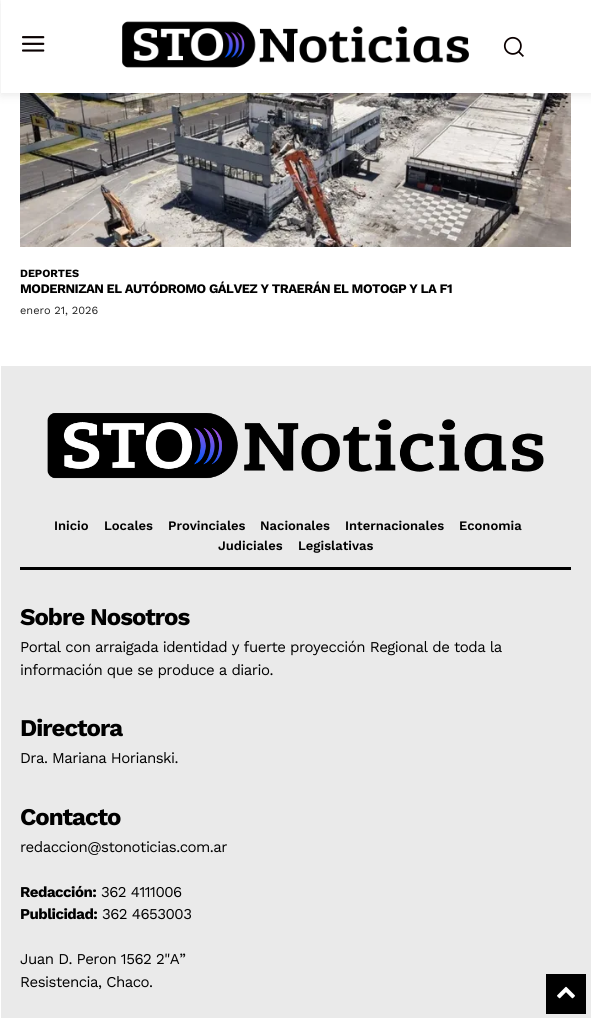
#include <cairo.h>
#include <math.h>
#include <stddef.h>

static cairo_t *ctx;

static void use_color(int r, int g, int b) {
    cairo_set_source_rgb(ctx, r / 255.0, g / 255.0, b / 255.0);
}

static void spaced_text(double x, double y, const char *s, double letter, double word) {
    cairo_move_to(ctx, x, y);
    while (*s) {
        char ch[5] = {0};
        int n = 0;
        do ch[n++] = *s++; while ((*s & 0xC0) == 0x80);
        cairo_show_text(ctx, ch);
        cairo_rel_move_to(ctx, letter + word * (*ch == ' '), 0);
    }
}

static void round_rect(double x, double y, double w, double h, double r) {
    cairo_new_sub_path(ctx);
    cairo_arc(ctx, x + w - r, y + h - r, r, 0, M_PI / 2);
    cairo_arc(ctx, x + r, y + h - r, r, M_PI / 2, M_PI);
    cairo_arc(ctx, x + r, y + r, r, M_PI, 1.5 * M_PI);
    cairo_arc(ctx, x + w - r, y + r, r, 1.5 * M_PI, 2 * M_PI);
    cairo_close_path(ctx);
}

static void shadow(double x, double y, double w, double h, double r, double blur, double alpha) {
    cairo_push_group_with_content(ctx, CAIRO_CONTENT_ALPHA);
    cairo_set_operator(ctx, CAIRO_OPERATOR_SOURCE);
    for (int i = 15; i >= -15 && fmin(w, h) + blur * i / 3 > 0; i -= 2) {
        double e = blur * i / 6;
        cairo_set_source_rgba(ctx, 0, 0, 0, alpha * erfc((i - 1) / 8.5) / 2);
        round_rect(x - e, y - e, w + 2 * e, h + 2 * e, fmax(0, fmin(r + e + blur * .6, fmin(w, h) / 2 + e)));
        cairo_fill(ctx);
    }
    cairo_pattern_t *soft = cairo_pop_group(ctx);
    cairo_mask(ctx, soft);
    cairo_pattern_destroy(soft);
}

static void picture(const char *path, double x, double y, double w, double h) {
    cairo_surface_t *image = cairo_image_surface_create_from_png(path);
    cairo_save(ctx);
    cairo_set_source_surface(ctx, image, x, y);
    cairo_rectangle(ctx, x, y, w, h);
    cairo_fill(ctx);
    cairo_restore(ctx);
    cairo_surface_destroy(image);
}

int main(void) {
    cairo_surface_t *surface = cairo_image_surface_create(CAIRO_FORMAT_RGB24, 591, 1018);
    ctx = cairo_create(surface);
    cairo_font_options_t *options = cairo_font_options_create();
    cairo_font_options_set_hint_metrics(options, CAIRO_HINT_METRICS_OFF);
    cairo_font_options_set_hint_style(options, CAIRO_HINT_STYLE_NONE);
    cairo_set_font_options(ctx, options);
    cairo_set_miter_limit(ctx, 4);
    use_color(255, 255, 255);
    cairo_paint(ctx);
    picture("img1.png", 22, 36, 23, 16);
    picture("img2.png", 122, 21, 347, 47);
    picture("img3.png", 503, 36, 21, 21);
    picture("img4.png", 20, 93, 551, 154);
    cairo_save(ctx);
    cairo_set_fill_rule(ctx, CAIRO_FILL_RULE_EVEN_ODD);
    cairo_new_path(ctx);
    cairo_move_to(ctx, 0, 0);
    cairo_line_to(ctx, 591, 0);
    cairo_line_to(ctx, 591, 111);
    cairo_line_to(ctx, 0, 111);
    cairo_close_path(ctx);
    cairo_move_to(ctx, 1, 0);
    cairo_line_to(ctx, 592, 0);
    cairo_line_to(ctx, 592, 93);
    cairo_line_to(ctx, 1, 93);
    cairo_close_path(ctx);
    cairo_clip(ctx);
    use_color(0, 0, 0);
    shadow(1, 2, 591, 93, 0, 5, 0.09);
    cairo_restore(ctx);
    cairo_select_font_face(ctx, "Work Sans", CAIRO_FONT_SLANT_NORMAL, CAIRO_FONT_WEIGHT_BOLD);
    cairo_set_font_size(ctx, 11);
    use_color(0, 0, 0);
    cairo_move_to(ctx, 20, 277);
    cairo_show_text(ctx, "DEPORTES");
    cairo_set_font_size(ctx, 13);
    spaced_text(20, 293, "MODERNIZAN EL AUTÓDROMO GÁLVEZ Y TRAERÁN EL MOTOGP Y LA F1", -0.5, 0);
    cairo_select_font_face(ctx, "Work Sans", CAIRO_FONT_SLANT_NORMAL, CAIRO_FONT_WEIGHT_NORMAL);
    cairo_set_font_size(ctx, 11);
    use_color(34, 34, 34);
    cairo_move_to(ctx, 20, 314);
    cairo_show_text(ctx, "enero 21, 2026");
    use_color(234, 234, 234);
    cairo_rectangle(ctx, 1, 366, 590, 652);
    cairo_fill(ctx);
    use_color(0, 0, 0);
    cairo_rectangle(ctx, 20, 567, 551, 3);
    cairo_fill(ctx);
    picture("img5.png", 47, 413, 497, 66);
    cairo_select_font_face(ctx, "Work Sans SemiBold", CAIRO_FONT_SLANT_NORMAL, CAIRO_FONT_WEIGHT_NORMAL);
    cairo_set_font_size(ctx, 13);
    cairo_move_to(ctx, 54, 530);
    cairo_show_text(ctx, "Inicio");
    cairo_move_to(ctx, 104, 530);
    cairo_show_text(ctx, "Locales");
    cairo_move_to(ctx, 168, 530);
    cairo_show_text(ctx, "Provinciales");
    cairo_move_to(ctx, 260, 530);
    cairo_show_text(ctx, "Nacionales");
    cairo_move_to(ctx, 345, 530);
    cairo_show_text(ctx, "Internacionales");
    cairo_move_to(ctx, 459, 530);
    cairo_show_text(ctx, "Economia");
    cairo_move_to(ctx, 218, 550);
    cairo_show_text(ctx, "Judiciales");
    cairo_move_to(ctx, 298, 550);
    cairo_show_text(ctx, "Legislativas");
    cairo_select_font_face(ctx, "Work Sans", CAIRO_FONT_SLANT_NORMAL, CAIRO_FONT_WEIGHT_BOLD);
    cairo_set_font_size(ctx, 24);
    spaced_text(20, 625, "Sobre Nosotros", -1, 0);
    cairo_select_font_face(ctx, "Work Sans", CAIRO_FONT_SLANT_NORMAL, CAIRO_FONT_WEIGHT_NORMAL);
    cairo_set_font_size(ctx, 15);
    spaced_text(20, 652, "Portal con arraigada identidad y fuerte proyección Regional de toda la", -0.5, 0);
    spaced_text(20, 675, "información que se produce a diario.", -0.5, 0);
    cairo_select_font_face(ctx, "Work Sans", CAIRO_FONT_SLANT_NORMAL, CAIRO_FONT_WEIGHT_BOLD);
    cairo_set_font_size(ctx, 24);
    spaced_text(20, 736, "Directora", -1, 0);
    cairo_select_font_face(ctx, "Work Sans", CAIRO_FONT_SLANT_NORMAL, CAIRO_FONT_WEIGHT_NORMAL);
    cairo_set_font_size(ctx, 15);
    spaced_text(20, 763, "Dra. Mariana Horianski.", -0.5, 0);
    cairo_select_font_face(ctx, "Work Sans", CAIRO_FONT_SLANT_NORMAL, CAIRO_FONT_WEIGHT_BOLD);
    cairo_set_font_size(ctx, 24);
    spaced_text(20, 825, "Contacto", -1, 0);
    cairo_select_font_face(ctx, "Work Sans", CAIRO_FONT_SLANT_NORMAL, CAIRO_FONT_WEIGHT_NORMAL);
    cairo_set_font_size(ctx, 15);
    spaced_text(20, 852, "redaccion@stonoticias.com.ar", -0.5, 0);
    cairo_select_font_face(ctx, "Work Sans", CAIRO_FONT_SLANT_NORMAL, CAIRO_FONT_WEIGHT_BOLD);
    spaced_text(20, 897, "Redacción:", -0.5, 0);
    cairo_select_font_face(ctx, "Work Sans", CAIRO_FONT_SLANT_NORMAL, CAIRO_FONT_WEIGHT_NORMAL);
    spaced_text(101, 897, "362 4111006", -0.5, 0);
    cairo_select_font_face(ctx, "Work Sans", CAIRO_FONT_SLANT_NORMAL, CAIRO_FONT_WEIGHT_BOLD);
    spaced_text(20, 919, "Publicidad:", -0.5, 0);
    cairo_select_font_face(ctx, "Work Sans", CAIRO_FONT_SLANT_NORMAL, CAIRO_FONT_WEIGHT_NORMAL);
    spaced_text(102, 919, "362 4653003", -0.5, 0);
    spaced_text(20, 964, "Juan D. Peron 1562 2\"A”", -0.5, 0);
    spaced_text(20, 987, "Resistencia, Chaco.", -0.5, 0);
    cairo_rectangle(ctx, 546, 974, 40, 40);
    cairo_fill(ctx);
    picture("img6.png", 557, 986, 18, 13);
    cairo_surface_write_to_png(surface, "result.png");
    cairo_font_options_destroy(options);
    cairo_destroy(ctx);
    cairo_surface_destroy(surface);
    return 0;
}
